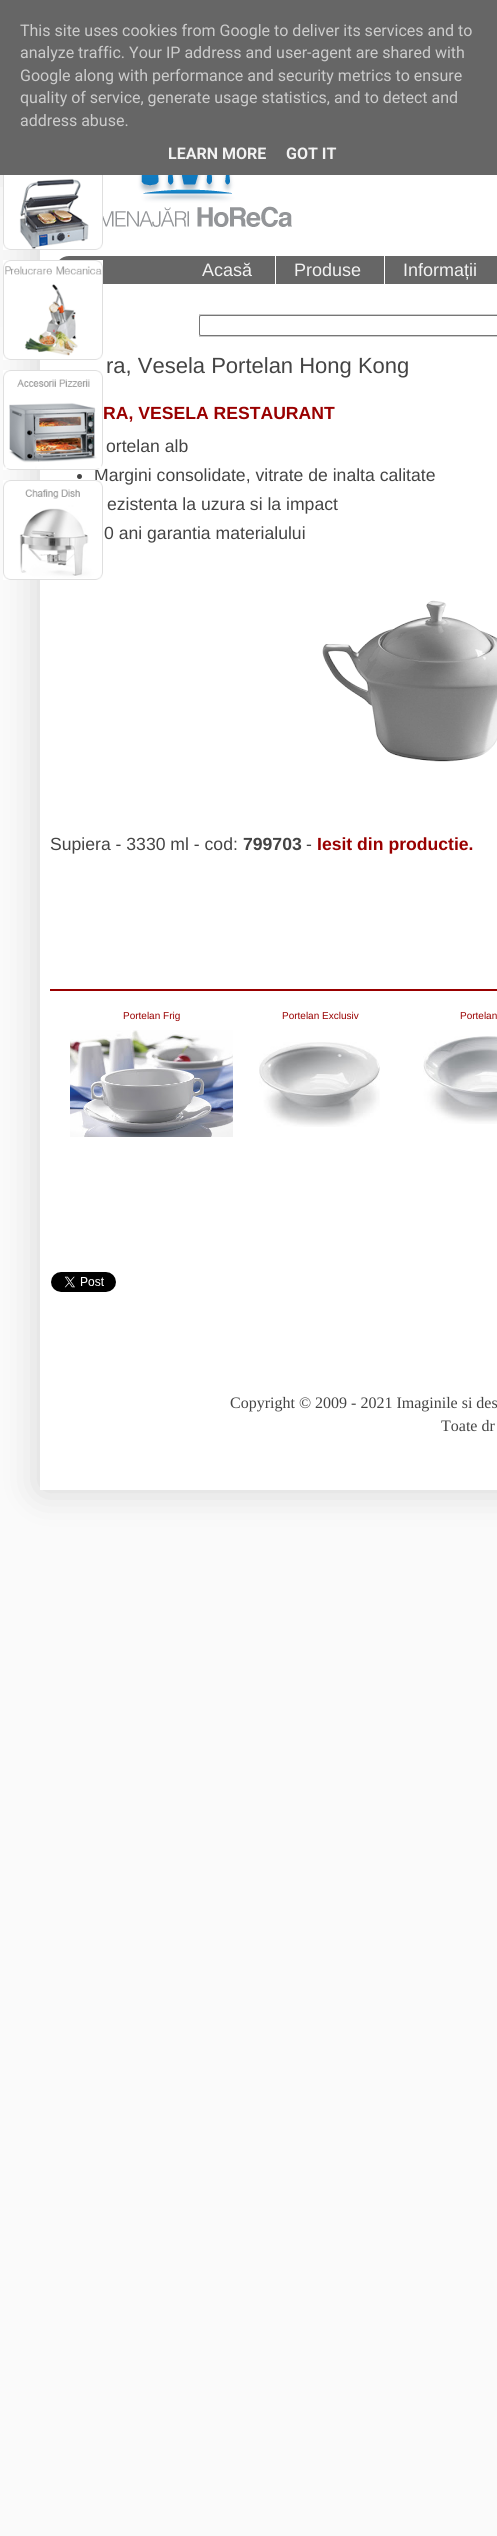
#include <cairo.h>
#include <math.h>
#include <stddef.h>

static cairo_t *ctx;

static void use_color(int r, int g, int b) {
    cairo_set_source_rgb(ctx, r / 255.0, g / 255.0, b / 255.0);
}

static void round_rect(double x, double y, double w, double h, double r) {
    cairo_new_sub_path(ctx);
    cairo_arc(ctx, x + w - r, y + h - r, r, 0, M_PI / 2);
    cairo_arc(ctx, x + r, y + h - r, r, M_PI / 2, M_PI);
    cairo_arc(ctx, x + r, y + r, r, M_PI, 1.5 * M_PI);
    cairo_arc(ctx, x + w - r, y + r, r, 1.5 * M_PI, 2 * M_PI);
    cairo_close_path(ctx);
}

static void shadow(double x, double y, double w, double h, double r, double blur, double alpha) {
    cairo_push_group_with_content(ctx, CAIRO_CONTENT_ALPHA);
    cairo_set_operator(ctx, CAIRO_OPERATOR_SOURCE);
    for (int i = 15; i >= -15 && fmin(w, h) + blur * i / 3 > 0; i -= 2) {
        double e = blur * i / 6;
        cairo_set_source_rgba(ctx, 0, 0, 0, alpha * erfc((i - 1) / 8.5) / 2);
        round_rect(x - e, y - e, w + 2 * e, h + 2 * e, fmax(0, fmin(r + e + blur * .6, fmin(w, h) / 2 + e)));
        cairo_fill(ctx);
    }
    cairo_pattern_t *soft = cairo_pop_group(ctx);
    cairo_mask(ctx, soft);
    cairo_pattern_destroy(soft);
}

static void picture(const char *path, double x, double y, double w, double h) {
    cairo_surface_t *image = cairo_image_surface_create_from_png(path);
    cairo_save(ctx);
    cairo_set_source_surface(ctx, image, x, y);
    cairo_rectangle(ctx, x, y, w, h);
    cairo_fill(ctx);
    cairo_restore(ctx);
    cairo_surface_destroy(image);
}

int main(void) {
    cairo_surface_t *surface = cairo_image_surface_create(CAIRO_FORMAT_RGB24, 497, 2536);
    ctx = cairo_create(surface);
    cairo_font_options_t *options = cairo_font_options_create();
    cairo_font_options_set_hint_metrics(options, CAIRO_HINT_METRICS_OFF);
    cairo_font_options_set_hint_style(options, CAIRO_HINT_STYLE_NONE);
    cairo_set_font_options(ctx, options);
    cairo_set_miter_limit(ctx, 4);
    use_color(250, 250, 250);
    cairo_paint(ctx);
    use_color(242, 242, 242);
    cairo_rectangle(ctx, 0, 175, 40, 225);
    cairo_fill(ctx);
    picture("img1.png", 0, 187, 40, 213);
    use_color(0, 0, 0);
    shadow(40, 56, 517, 1434, 0, 20, 0.15);
    use_color(102, 102, 102);
    cairo_rectangle(ctx, 0, 0, 497, 175);
    cairo_fill(ctx);
    cairo_select_font_face(ctx, "Roboto", CAIRO_FONT_SLANT_NORMAL, CAIRO_FONT_WEIGHT_NORMAL);
    cairo_set_font_size(ctx, 16);
    use_color(204, 204, 204);
    cairo_move_to(ctx, 20, 36);
    cairo_show_text(ctx, "This site uses cookies from Google to deliver its services and to");
    cairo_move_to(ctx, 20, 58);
    cairo_show_text(ctx, "analyze traffic. Your IP address and user-agent are shared with");
    cairo_move_to(ctx, 20, 81);
    cairo_show_text(ctx, "Google along with performance and security metrics to ensure");
    cairo_move_to(ctx, 20, 103);
    cairo_show_text(ctx, "quality of service, generate usage statistics, and to detect and");
    cairo_move_to(ctx, 20, 126);
    cairo_show_text(ctx, "address abuse.");
    cairo_select_font_face(ctx, "Roboto", CAIRO_FONT_SLANT_NORMAL, CAIRO_FONT_WEIGHT_BOLD);
    use_color(242, 242, 242);
    cairo_move_to(ctx, 168, 159);
    cairo_show_text(ctx, "LEARN MORE");
    cairo_move_to(ctx, 286, 159);
    cairo_show_text(ctx, "GOT IT");
    use_color(255, 255, 255);
    cairo_rectangle(ctx, 40, 175, 457, 1315);
    cairo_fill(ctx);
    picture("img2.png", 3, 175, 100, 75);
    use_color(102, 102, 102);
    round_rect(55, 256, 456, 28, 14);
    cairo_fill(ctx);
    picture("img3.png", 3, 260, 100, 100);
    picture("img4.png", 103, 175, 189, 52);
    cairo_select_font_face(ctx, "Liberation Sans", CAIRO_FONT_SLANT_NORMAL, CAIRO_FONT_WEIGHT_NORMAL);
    cairo_set_font_size(ctx, 18);
    use_color(242, 242, 242);
    cairo_move_to(ctx, 202, 276);
    cairo_show_text(ctx, "Acasă");
    use_color(255, 255, 255);
    cairo_rectangle(ctx, 275, 256, 1, 28);
    cairo_fill(ctx);
    use_color(242, 242, 242);
    cairo_move_to(ctx, 294, 276);
    cairo_show_text(ctx, "Produse");
    use_color(255, 255, 255);
    cairo_rectangle(ctx, 384, 256, 1, 28);
    cairo_fill(ctx);
    use_color(242, 242, 242);
    cairo_move_to(ctx, 403, 276);
    cairo_show_text(ctx, "Informații");
    use_color(204, 204, 204);
    cairo_rectangle(ctx, 199, 314, 298, 23);
    cairo_fill(ctx);
    use_color(255, 255, 255);
    round_rect(199.5, 315.5, 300, 20, 1.5);
    cairo_fill_preserve(ctx);
    use_color(118, 118, 118);
    cairo_set_line_width(ctx, 1);
    cairo_stroke(ctx);
    cairo_set_font_size(ctx, 22);
    use_color(68, 68, 68);
    cairo_move_to(ctx, 106, 373);
    cairo_show_text(ctx, "ra, Vesela Portelan Hong Kong");
    cairo_select_font_face(ctx, "Liberation Sans", CAIRO_FONT_SLANT_NORMAL, CAIRO_FONT_WEIGHT_BOLD);
    cairo_set_font_size(ctx, 17.6);
    use_color(153, 0, 0);
    cairo_move_to(ctx, 103, 419);
    cairo_show_text(ctx, "RA, VESELA RESTAURANT");
    cairo_select_font_face(ctx, "Liberation Sans", CAIRO_FONT_SLANT_NORMAL, CAIRO_FONT_WEIGHT_NORMAL);
    use_color(68, 68, 68);
    cairo_move_to(ctx, 106, 452);
    cairo_show_text(ctx, "ortelan alb");
    cairo_new_path(ctx);
    cairo_arc(ctx, 79.5, 476.5, 2.5, 0, 2 * M_PI);
    cairo_fill(ctx);
    cairo_move_to(ctx, 94, 481);
    cairo_show_text(ctx, "Margini consolidate, vitrate de inalta calitate");
    cairo_move_to(ctx, 107, 510);
    cairo_show_text(ctx, "ezistenta la uzura si la impact");
    cairo_move_to(ctx, 104, 539);
    cairo_show_text(ctx, "0 ani garantia materialului");
    picture("img5.png", 322, 600, 175, 162);
    cairo_move_to(ctx, 50, 850);
    cairo_show_text(ctx, "Supiera - 3330 ml - cod:");
    cairo_select_font_face(ctx, "Liberation Sans", CAIRO_FONT_SLANT_NORMAL, CAIRO_FONT_WEIGHT_BOLD);
    cairo_move_to(ctx, 243, 850);
    cairo_show_text(ctx, "799703");
    cairo_select_font_face(ctx, "Liberation Sans", CAIRO_FONT_SLANT_NORMAL, CAIRO_FONT_WEIGHT_NORMAL);
    cairo_move_to(ctx, 306, 850);
    cairo_show_text(ctx, "-");
    cairo_select_font_face(ctx, "Liberation Sans", CAIRO_FONT_SLANT_NORMAL, CAIRO_FONT_WEIGHT_BOLD);
    use_color(153, 0, 0);
    cairo_move_to(ctx, 317, 850);
    cairo_show_text(ctx, "Iesit din productie.");
    cairo_rectangle(ctx, 50, 989, 447, 2);
    cairo_fill(ctx);
    cairo_select_font_face(ctx, "Liberation Sans", CAIRO_FONT_SLANT_NORMAL, CAIRO_FONT_WEIGHT_NORMAL);
    cairo_set_font_size(ctx, 10);
    cairo_move_to(ctx, 123, 1019);
    cairo_show_text(ctx, "Portelan Frig");
    picture("img6.png", 70, 1030, 163, 107);
    cairo_move_to(ctx, 282, 1019);
    cairo_show_text(ctx, "Portelan Exclusiv");
    picture("img7.png", 259, 1042, 121, 85);
    cairo_move_to(ctx, 460, 1019);
    cairo_show_text(ctx, "Portelan");
    picture("img8.png", 423, 1036, 74, 88);
    picture("img9.png", 51, 1272, 65, 20);
    cairo_select_font_face(ctx, "Liberation Serif", CAIRO_FONT_SLANT_NORMAL, CAIRO_FONT_WEIGHT_NORMAL);
    cairo_set_font_size(ctx, 16);
    use_color(68, 68, 68);
    cairo_move_to(ctx, 230, 1408);
    cairo_show_text(ctx, "Copyright © 2009 - 2021 Imaginile si des");
    cairo_move_to(ctx, 441, 1431);
    cairo_show_text(ctx, "Toate dr");
    picture("img10.png", 3, 370, 100, 100);
    picture("img11.png", 3, 480, 100, 100);
    cairo_surface_write_to_png(surface, "result.png");
    cairo_font_options_destroy(options);
    cairo_destroy(ctx);
    cairo_surface_destroy(surface);
    return 0;
}
